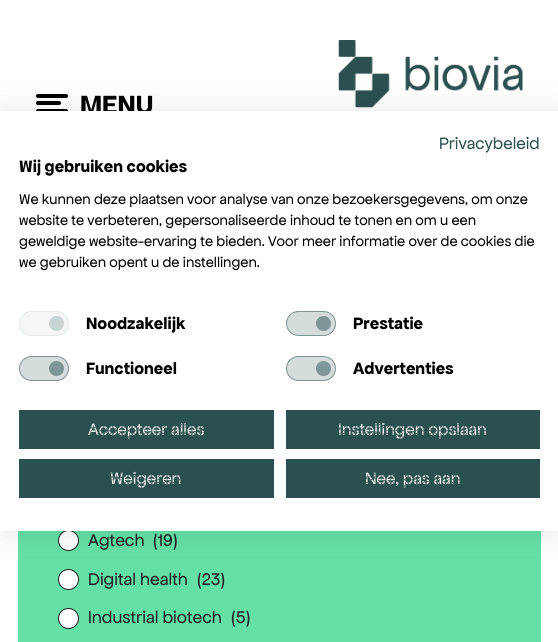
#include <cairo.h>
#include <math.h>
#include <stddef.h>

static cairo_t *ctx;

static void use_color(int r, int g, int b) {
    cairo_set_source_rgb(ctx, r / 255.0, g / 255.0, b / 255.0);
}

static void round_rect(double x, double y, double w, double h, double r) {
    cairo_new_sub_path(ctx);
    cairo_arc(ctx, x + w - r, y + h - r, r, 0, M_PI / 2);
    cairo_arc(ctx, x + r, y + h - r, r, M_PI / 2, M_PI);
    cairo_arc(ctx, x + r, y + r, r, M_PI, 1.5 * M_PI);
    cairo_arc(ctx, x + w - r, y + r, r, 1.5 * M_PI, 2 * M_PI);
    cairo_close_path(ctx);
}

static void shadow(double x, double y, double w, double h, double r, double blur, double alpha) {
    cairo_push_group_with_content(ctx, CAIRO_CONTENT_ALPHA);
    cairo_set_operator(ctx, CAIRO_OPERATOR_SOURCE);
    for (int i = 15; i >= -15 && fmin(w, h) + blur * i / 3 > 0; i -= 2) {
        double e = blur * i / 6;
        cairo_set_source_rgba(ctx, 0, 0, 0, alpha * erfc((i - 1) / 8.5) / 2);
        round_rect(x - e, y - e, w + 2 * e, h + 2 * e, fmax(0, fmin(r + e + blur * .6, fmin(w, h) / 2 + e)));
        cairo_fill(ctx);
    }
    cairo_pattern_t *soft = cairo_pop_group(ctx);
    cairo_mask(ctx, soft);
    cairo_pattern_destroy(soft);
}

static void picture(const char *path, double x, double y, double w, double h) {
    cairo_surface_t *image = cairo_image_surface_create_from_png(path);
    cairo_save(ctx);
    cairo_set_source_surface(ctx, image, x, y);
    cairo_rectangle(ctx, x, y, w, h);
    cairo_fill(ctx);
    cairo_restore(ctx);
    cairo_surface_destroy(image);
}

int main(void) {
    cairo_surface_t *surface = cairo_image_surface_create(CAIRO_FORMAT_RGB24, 558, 642);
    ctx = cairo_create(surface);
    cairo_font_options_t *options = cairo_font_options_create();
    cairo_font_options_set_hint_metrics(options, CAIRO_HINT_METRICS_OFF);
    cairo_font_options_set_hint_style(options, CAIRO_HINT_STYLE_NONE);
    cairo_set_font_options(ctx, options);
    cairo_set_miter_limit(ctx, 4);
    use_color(255, 255, 255);
    cairo_paint(ctx);
    use_color(0, 0, 0);
    round_rect(36, 94, 32, 4, 2);
    cairo_fill(ctx);
    cairo_select_font_face(ctx, "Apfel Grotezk", CAIRO_FONT_SLANT_NORMAL, CAIRO_FONT_WEIGHT_BOLD);
    cairo_set_font_size(ctx, 28);
    cairo_move_to(ctx, 80, 114);
    cairo_show_text(ctx, "MENU");
    round_rect(36, 101, 25, 4, 2);
    cairo_fill(ctx);
    round_rect(36, 109, 32, 4, 2);
    cairo_fill(ctx);
    picture("img1.png", 338, 40, 185, 68);
    use_color(100, 223, 165);
    cairo_rectangle(ctx, 18, 531, 523, 111);
    cairo_fill(ctx);
    use_color(255, 255, 255);
    cairo_arc(ctx, 68.5, 540.5, 10, 0, 2 * M_PI);
    cairo_fill_preserve(ctx);
    use_color(31, 31, 31);
    cairo_set_line_width(ctx, 1);
    cairo_stroke(ctx);
    cairo_select_font_face(ctx, "Apfel Grotezk", CAIRO_FONT_SLANT_NORMAL, CAIRO_FONT_WEIGHT_NORMAL);
    cairo_set_font_size(ctx, 18);
    cairo_move_to(ctx, 88, 546);
    cairo_show_text(ctx, "Agtech");
    cairo_move_to(ctx, 153, 546);
    cairo_show_text(ctx, "(19)");
    use_color(255, 255, 255);
    cairo_new_path(ctx);
    cairo_arc(ctx, 68.5, 579.5, 10, 0, 2 * M_PI);
    cairo_fill_preserve(ctx);
    use_color(31, 31, 31);
    cairo_stroke(ctx);
    cairo_move_to(ctx, 88, 585);
    cairo_show_text(ctx, "Digital health");
    cairo_move_to(ctx, 197, 585);
    cairo_show_text(ctx, "(23)");
    use_color(255, 255, 255);
    cairo_new_path(ctx);
    cairo_arc(ctx, 68.5, 618.5, 10, 0, 2 * M_PI);
    cairo_fill_preserve(ctx);
    use_color(31, 31, 31);
    cairo_stroke(ctx);
    cairo_move_to(ctx, 88, 623);
    cairo_show_text(ctx, "Industrial biotech");
    cairo_move_to(ctx, 231, 623);
    cairo_show_text(ctx, "(5)");
    use_color(0, 0, 0);
    shadow(0, 111, 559, 420, 0, 15, 0.1);
    use_color(255, 255, 255);
    cairo_rectangle(ctx, 0, 111, 558, 420);
    cairo_fill(ctx);
    cairo_set_font_size(ctx, 17.5);
    use_color(42, 80, 79);
    cairo_move_to(ctx, 439, 149);
    cairo_show_text(ctx, "Privacybeleid");
    cairo_select_font_face(ctx, "Apfel Grotezk", CAIRO_FONT_SLANT_NORMAL, CAIRO_FONT_WEIGHT_BOLD);
    use_color(0, 0, 0);
    cairo_move_to(ctx, 19, 172);
    cairo_show_text(ctx, "Wij gebruiken cookies");
    cairo_select_font_face(ctx, "Apfel Grotezk", CAIRO_FONT_SLANT_NORMAL, CAIRO_FONT_WEIGHT_NORMAL);
    cairo_set_font_size(ctx, 15);
    cairo_move_to(ctx, 19, 204);
    cairo_show_text(ctx, "We kunnen deze plaatsen voor analyse van onze bezoekersgegevens, om onze");
    cairo_move_to(ctx, 19, 225);
    cairo_show_text(ctx, "website te verbeteren, gepersonaliseerde inhoud te tonen en om u een");
    cairo_move_to(ctx, 19, 246);
    cairo_show_text(ctx, "geweldige website-ervaring te bieden. Voor meer informatie over de cookies die");
    cairo_move_to(ctx, 19, 267);
    cairo_show_text(ctx, "we gebruiken opent u de instellingen.");
    use_color(244, 246, 246);
    round_rect(19, 311, 50, 25, 12.5);
    cairo_fill(ctx);
    use_color(202, 211, 211);
    cairo_arc(ctx, 56.5, 323.5, 7.5, 0, 2 * M_PI);
    cairo_fill(ctx);
    round_rect(19.5, 311.5, 49, 24, 12);
    use_color(228, 233, 233);
    cairo_stroke(ctx);
    cairo_select_font_face(ctx, "Apfel Grotezk", CAIRO_FONT_SLANT_NORMAL, CAIRO_FONT_WEIGHT_BOLD);
    cairo_set_font_size(ctx, 17.5);
    use_color(0, 0, 0);
    cairo_move_to(ctx, 86, 329);
    cairo_show_text(ctx, "Noodzakelijk");
    use_color(212, 220, 220);
    round_rect(286, 311, 50, 25, 12.5);
    cairo_fill(ctx);
    use_color(127, 150, 150);
    cairo_arc(ctx, 323.5, 323.5, 7.5, 0, 2 * M_PI);
    cairo_fill(ctx);
    round_rect(286.5, 311.5, 49, 24, 12);
    cairo_set_source_rgba(ctx, 0.165, 0.314, 0.31, 0.5);
    cairo_stroke(ctx);
    use_color(0, 0, 0);
    cairo_move_to(ctx, 353, 329);
    cairo_show_text(ctx, "Prestatie");
    use_color(212, 220, 220);
    round_rect(19, 356, 50, 25, 12.5);
    cairo_fill(ctx);
    use_color(127, 150, 150);
    cairo_arc(ctx, 56.5, 368.5, 7.5, 0, 2 * M_PI);
    cairo_fill(ctx);
    round_rect(19.5, 356.5, 49, 24, 12);
    cairo_set_source_rgba(ctx, 0.165, 0.314, 0.31, 0.5);
    cairo_stroke(ctx);
    use_color(0, 0, 0);
    cairo_move_to(ctx, 86, 374);
    cairo_show_text(ctx, "Functioneel");
    use_color(212, 220, 220);
    round_rect(286, 356, 50, 25, 12.5);
    cairo_fill(ctx);
    use_color(127, 150, 150);
    cairo_arc(ctx, 323.5, 368.5, 7.5, 0, 2 * M_PI);
    cairo_fill(ctx);
    round_rect(286.5, 356.5, 49, 24, 12);
    cairo_set_source_rgba(ctx, 0.165, 0.314, 0.31, 0.5);
    cairo_stroke(ctx);
    use_color(0, 0, 0);
    cairo_move_to(ctx, 353, 374);
    cairo_show_text(ctx, "Advertenties");
    use_color(42, 80, 79);
    cairo_rectangle(ctx, 19, 410, 255, 39);
    cairo_fill(ctx);
    cairo_select_font_face(ctx, "Apfel Grotezk Light", CAIRO_FONT_SLANT_NORMAL, CAIRO_FONT_WEIGHT_NORMAL);
    use_color(255, 255, 255);
    cairo_move_to(ctx, 88, 435);
    cairo_show_text(ctx, "Accepteer alles");
    use_color(42, 80, 79);
    cairo_rectangle(ctx, 286, 410, 254, 39);
    cairo_fill(ctx);
    use_color(255, 255, 255);
    cairo_move_to(ctx, 338, 435);
    cairo_show_text(ctx, "Instellingen opslaan");
    use_color(42, 80, 79);
    cairo_rectangle(ctx, 19, 459, 255, 39);
    cairo_fill(ctx);
    use_color(255, 255, 255);
    cairo_move_to(ctx, 110, 484);
    cairo_show_text(ctx, "Weigeren");
    use_color(42, 80, 79);
    cairo_rectangle(ctx, 286, 459, 254, 39);
    cairo_fill(ctx);
    use_color(255, 255, 255);
    cairo_move_to(ctx, 365, 484);
    cairo_show_text(ctx, "Nee, pas aan");
    cairo_surface_write_to_png(surface, "result.png");
    cairo_font_options_destroy(options);
    cairo_destroy(ctx);
    cairo_surface_destroy(surface);
    return 0;
}
